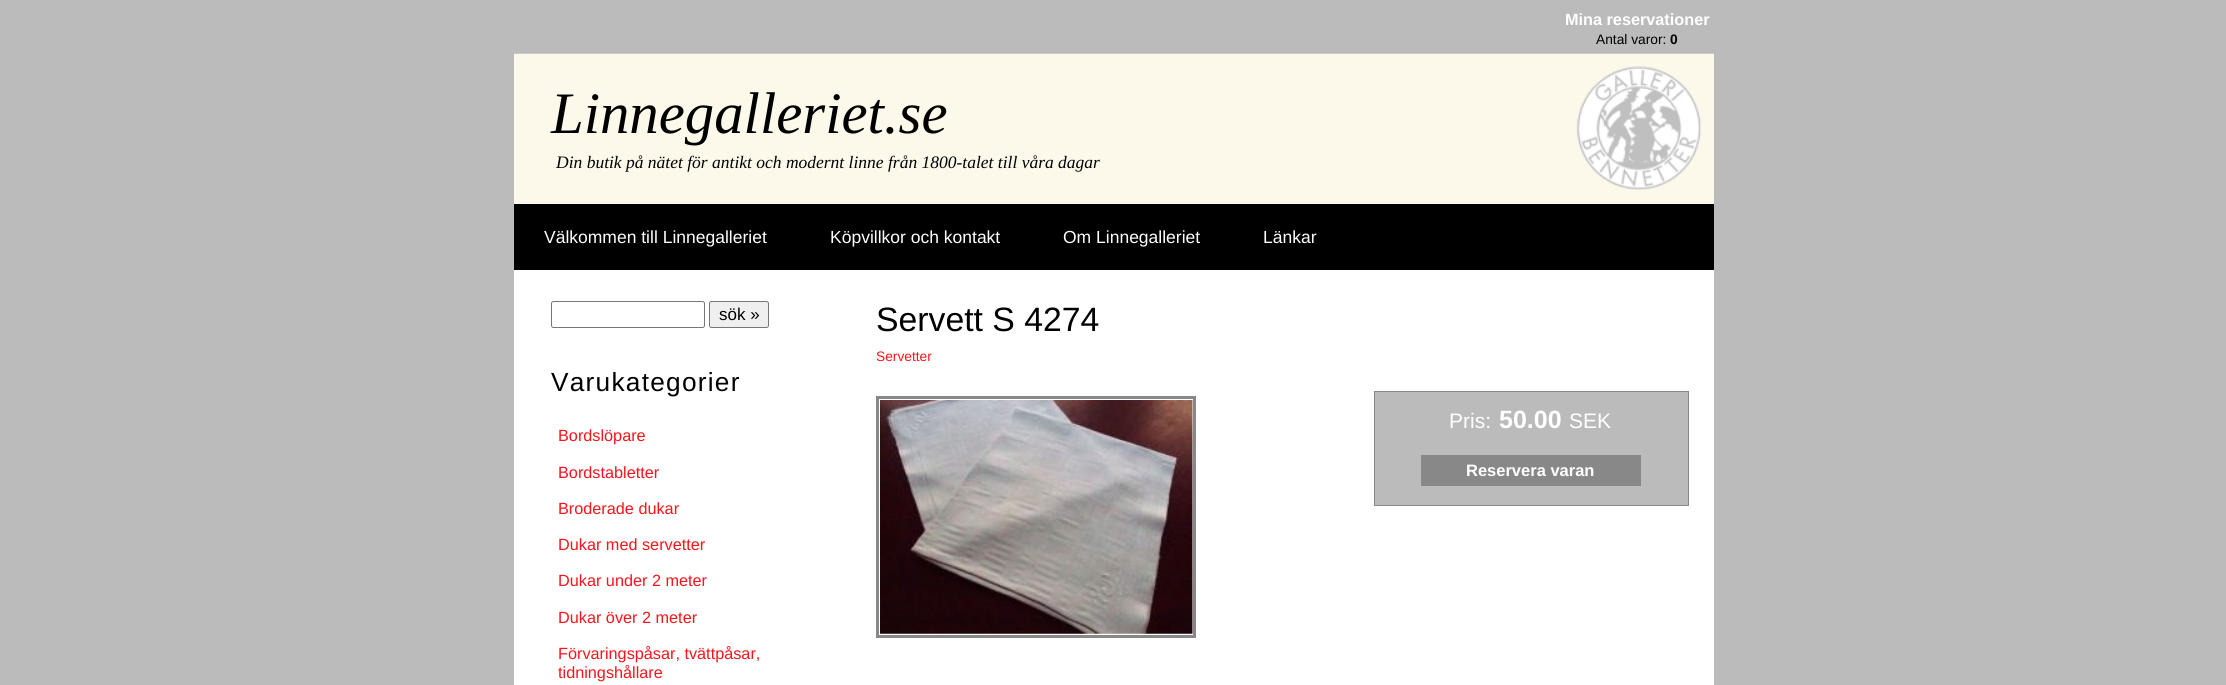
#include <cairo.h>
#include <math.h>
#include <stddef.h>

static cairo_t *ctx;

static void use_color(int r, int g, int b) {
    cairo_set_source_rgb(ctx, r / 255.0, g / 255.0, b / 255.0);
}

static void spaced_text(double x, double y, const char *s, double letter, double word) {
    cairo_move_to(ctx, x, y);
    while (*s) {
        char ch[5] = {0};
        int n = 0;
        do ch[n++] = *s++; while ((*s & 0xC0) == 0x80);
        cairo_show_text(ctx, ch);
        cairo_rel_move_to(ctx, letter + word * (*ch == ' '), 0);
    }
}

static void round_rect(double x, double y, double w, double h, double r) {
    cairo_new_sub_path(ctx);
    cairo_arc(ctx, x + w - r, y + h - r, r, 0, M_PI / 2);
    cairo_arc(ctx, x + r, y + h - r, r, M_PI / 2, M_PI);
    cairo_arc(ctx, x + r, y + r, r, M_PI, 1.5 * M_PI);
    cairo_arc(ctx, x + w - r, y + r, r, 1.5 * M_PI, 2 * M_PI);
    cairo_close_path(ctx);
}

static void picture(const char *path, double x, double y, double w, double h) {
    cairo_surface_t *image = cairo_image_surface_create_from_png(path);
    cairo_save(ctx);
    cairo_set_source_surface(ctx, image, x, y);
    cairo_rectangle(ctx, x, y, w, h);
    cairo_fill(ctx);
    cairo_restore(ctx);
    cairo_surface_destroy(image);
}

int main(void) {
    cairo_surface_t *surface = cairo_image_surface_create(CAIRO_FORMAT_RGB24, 2226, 685);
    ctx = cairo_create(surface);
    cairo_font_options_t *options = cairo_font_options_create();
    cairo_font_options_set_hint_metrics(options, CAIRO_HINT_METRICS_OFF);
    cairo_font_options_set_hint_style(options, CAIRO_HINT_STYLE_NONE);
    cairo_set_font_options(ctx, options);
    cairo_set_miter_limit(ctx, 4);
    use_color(187, 187, 187);
    cairo_paint(ctx);
    cairo_select_font_face(ctx, "Liberation Sans", CAIRO_FONT_SLANT_NORMAL, CAIRO_FONT_WEIGHT_BOLD);
    cairo_set_font_size(ctx, 16.25);
    use_color(255, 255, 255);
    cairo_move_to(ctx, 1565, 25);
    cairo_show_text(ctx, "Mina reservationer");
    cairo_select_font_face(ctx, "Liberation Sans", CAIRO_FONT_SLANT_NORMAL, CAIRO_FONT_WEIGHT_NORMAL);
    cairo_set_font_size(ctx, 13.75);
    use_color(0, 0, 0);
    cairo_move_to(ctx, 1596, 44);
    cairo_show_text(ctx, "Antal varor:");
    cairo_select_font_face(ctx, "Liberation Sans", CAIRO_FONT_SLANT_NORMAL, CAIRO_FONT_WEIGHT_BOLD);
    cairo_move_to(ctx, 1670, 44);
    cairo_show_text(ctx, "0");
    use_color(252, 249, 235);
    cairo_rectangle(ctx, 514, 54, 1200, 150);
    cairo_fill(ctx);
    picture("img1.png", 1576, 66, 126, 124);
    use_color(201, 201, 201);
    cairo_rectangle(ctx, 514, 53, 1200, 1);
    cairo_fill(ctx);
    cairo_select_font_face(ctx, "Liberation Serif", CAIRO_FONT_SLANT_ITALIC, CAIRO_FONT_WEIGHT_NORMAL);
    cairo_set_font_size(ctx, 58.75);
    use_color(0, 0, 0);
    cairo_move_to(ctx, 551, 133);
    cairo_show_text(ctx, "Linnegalleriet.se");
    cairo_set_font_size(ctx, 17.5);
    cairo_move_to(ctx, 556, 168);
    cairo_show_text(ctx, "Din butik på nätet för antikt och modernt linne från 1800-talet till våra dagar");
    cairo_rectangle(ctx, 514, 204, 1200, 66);
    cairo_fill(ctx);
    cairo_select_font_face(ctx, "Liberation Sans", CAIRO_FONT_SLANT_NORMAL, CAIRO_FONT_WEIGHT_NORMAL);
    use_color(255, 255, 255);
    cairo_move_to(ctx, 544, 243);
    cairo_show_text(ctx, "Välkommen till Linnegalleriet");
    cairo_move_to(ctx, 830, 243);
    cairo_show_text(ctx, "Köpvillkor och kontakt");
    cairo_move_to(ctx, 1063, 243);
    cairo_show_text(ctx, "Om Linnegalleriet");
    cairo_move_to(ctx, 1263, 243);
    cairo_show_text(ctx, "Länkar");
    cairo_rectangle(ctx, 514, 270, 1200, 415);
    cairo_fill(ctx);
    round_rect(551.5, 301.5, 153, 26, 2);
    use_color(118, 118, 118);
    cairo_set_line_width(ctx, 1);
    cairo_stroke(ctx);
    use_color(239, 239, 239);
    round_rect(709.5, 301.5, 59, 26, 2);
    cairo_fill_preserve(ctx);
    use_color(118, 118, 118);
    cairo_stroke(ctx);
    cairo_set_font_size(ctx, 17);
    use_color(0, 0, 0);
    cairo_move_to(ctx, 719, 320);
    cairo_show_text(ctx, "sök »");
    cairo_set_font_size(ctx, 26.25);
    spaced_text(551, 391, "Varukategorier", 1.25, 0);
    cairo_set_font_size(ctx, 16.25);
    use_color(250, 20, 27);
    cairo_move_to(ctx, 558, 441);
    cairo_show_text(ctx, "Bordslöpare");
    cairo_move_to(ctx, 558, 478);
    cairo_show_text(ctx, "Bordstabletter");
    cairo_move_to(ctx, 558, 514);
    cairo_show_text(ctx, "Broderade dukar");
    cairo_move_to(ctx, 558, 550);
    cairo_show_text(ctx, "Dukar med servetter");
    cairo_move_to(ctx, 558, 586);
    cairo_show_text(ctx, "Dukar under 2 meter");
    cairo_move_to(ctx, 558, 623);
    cairo_show_text(ctx, "Dukar över 2 meter");
    cairo_move_to(ctx, 558, 659);
    cairo_show_text(ctx, "Förvaringspåsar, tvättpåsar,");
    cairo_move_to(ctx, 558, 678);
    cairo_show_text(ctx, "tidningshållare");
    cairo_set_font_size(ctx, 33.75);
    use_color(0, 0, 0);
    cairo_move_to(ctx, 876, 331);
    cairo_show_text(ctx, "Servett S 4274");
    cairo_set_font_size(ctx, 13.75);
    use_color(250, 20, 27);
    cairo_move_to(ctx, 876, 361);
    cairo_show_text(ctx, "Servetter");
    cairo_rectangle(ctx, 877.5, 397.5, 317, 239);
    use_color(136, 136, 136);
    cairo_set_line_width(ctx, 3);
    cairo_stroke(ctx);
    picture("img2.png", 880, 400, 313, 234);
    use_color(187, 187, 187);
    cairo_rectangle(ctx, 1374.5, 391.5, 314, 114);
    cairo_fill_preserve(ctx);
    use_color(136, 136, 136);
    cairo_set_line_width(ctx, 1);
    cairo_stroke(ctx);
    cairo_set_font_size(ctx, 21);
    use_color(255, 255, 255);
    cairo_move_to(ctx, 1449, 428);
    cairo_show_text(ctx, "Pris:");
    cairo_select_font_face(ctx, "Liberation Sans", CAIRO_FONT_SLANT_NORMAL, CAIRO_FONT_WEIGHT_BOLD);
    cairo_set_font_size(ctx, 25);
    cairo_move_to(ctx, 1499, 428);
    cairo_show_text(ctx, "50.00");
    cairo_select_font_face(ctx, "Liberation Sans", CAIRO_FONT_SLANT_NORMAL, CAIRO_FONT_WEIGHT_NORMAL);
    cairo_set_font_size(ctx, 21);
    cairo_move_to(ctx, 1569, 428);
    cairo_show_text(ctx, "SEK");
    use_color(136, 136, 136);
    cairo_rectangle(ctx, 1421, 455, 220, 31);
    cairo_fill(ctx);
    cairo_select_font_face(ctx, "Liberation Sans", CAIRO_FONT_SLANT_NORMAL, CAIRO_FONT_WEIGHT_BOLD);
    cairo_set_font_size(ctx, 16.5);
    use_color(255, 255, 255);
    cairo_move_to(ctx, 1466, 476);
    cairo_show_text(ctx, "Reservera varan");
    cairo_surface_write_to_png(surface, "result.png");
    cairo_font_options_destroy(options);
    cairo_destroy(ctx);
    cairo_surface_destroy(surface);
    return 0;
}
